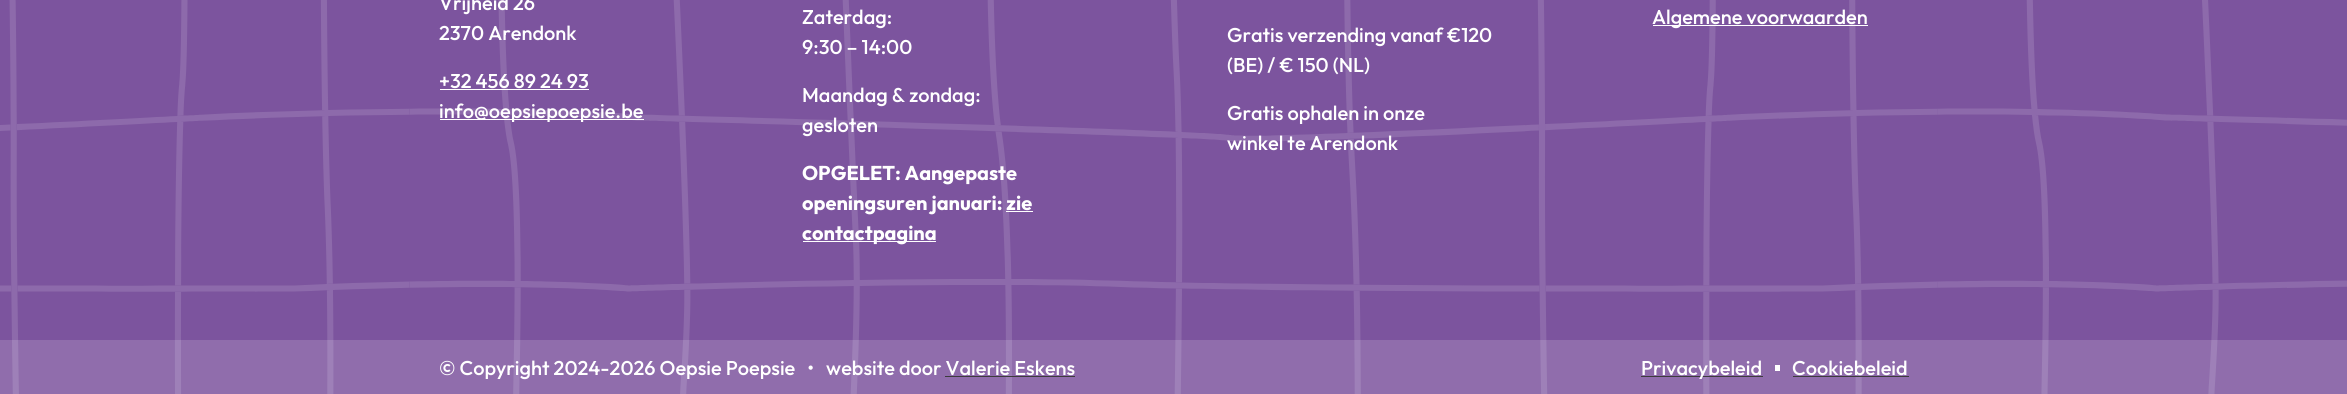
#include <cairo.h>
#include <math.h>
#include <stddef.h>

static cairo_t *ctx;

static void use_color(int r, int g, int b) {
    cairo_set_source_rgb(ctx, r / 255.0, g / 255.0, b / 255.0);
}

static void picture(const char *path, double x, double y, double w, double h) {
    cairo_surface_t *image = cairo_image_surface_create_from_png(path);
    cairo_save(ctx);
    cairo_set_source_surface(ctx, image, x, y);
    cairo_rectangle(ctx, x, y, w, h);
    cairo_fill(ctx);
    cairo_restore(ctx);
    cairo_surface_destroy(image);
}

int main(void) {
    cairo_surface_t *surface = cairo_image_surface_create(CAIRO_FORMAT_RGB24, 2347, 394);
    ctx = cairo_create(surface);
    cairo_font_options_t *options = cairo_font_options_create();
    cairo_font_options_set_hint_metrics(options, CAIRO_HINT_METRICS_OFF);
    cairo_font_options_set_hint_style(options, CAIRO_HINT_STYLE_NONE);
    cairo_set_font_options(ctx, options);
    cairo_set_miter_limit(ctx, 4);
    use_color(255, 255, 255);
    cairo_paint(ctx);
    picture("img1.png", 0, 0, 2347, 394);
    cairo_select_font_face(ctx, "Outfit Thin", CAIRO_FONT_SLANT_NORMAL, CAIRO_FONT_WEIGHT_NORMAL);
    cairo_set_font_size(ctx, 20);
    use_color(255, 255, 255);
    cairo_move_to(ctx, 439, 10);
    cairo_show_text(ctx, "Vrijheid 26");
    cairo_move_to(ctx, 439, 40);
    cairo_show_text(ctx, "2370 Arendonk");
    cairo_move_to(ctx, 439, 88);
    cairo_show_text(ctx, "+32 456 89 24 93");
    cairo_rectangle(ctx, 440, 89, 149, 1);
    cairo_fill(ctx);
    cairo_rectangle(ctx, 440, 119, 204, 1);
    cairo_fill(ctx);
    cairo_move_to(ctx, 439, 118);
    cairo_show_text(ctx, "info@oepsiepoepsie.be");
    cairo_move_to(ctx, 802, 24);
    cairo_show_text(ctx, "Zaterdag:");
    cairo_move_to(ctx, 802, 54);
    cairo_show_text(ctx, "9:30 – 14:00");
    cairo_move_to(ctx, 802, 102);
    cairo_show_text(ctx, "Maandag & zondag:");
    cairo_move_to(ctx, 802, 132);
    cairo_show_text(ctx, "gesloten");
    cairo_select_font_face(ctx, "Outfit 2 Thin", CAIRO_FONT_SLANT_NORMAL, CAIRO_FONT_WEIGHT_NORMAL);
    cairo_move_to(ctx, 802, 180);
    cairo_show_text(ctx, "OPGELET: Aangepaste");
    cairo_move_to(ctx, 802, 210);
    cairo_show_text(ctx, "openingsuren januari: zie");
    cairo_rectangle(ctx, 1006, 211, 27, 1);
    cairo_fill(ctx);
    cairo_rectangle(ctx, 803, 241, 133, 1);
    cairo_fill(ctx);
    cairo_move_to(ctx, 802, 240);
    cairo_show_text(ctx, "contactpagina");
    cairo_rectangle(ctx, 1653, 25, 215, 1);
    cairo_fill(ctx);
    cairo_select_font_face(ctx, "Outfit Thin", CAIRO_FONT_SLANT_NORMAL, CAIRO_FONT_WEIGHT_NORMAL);
    cairo_move_to(ctx, 1652, 24);
    cairo_show_text(ctx, "Algemene voorwaarden");
    cairo_move_to(ctx, 1227, 42);
    cairo_show_text(ctx, "Gratis verzending vanaf €120");
    cairo_move_to(ctx, 1227, 72);
    cairo_show_text(ctx, "(BE) / € 150 (NL)");
    cairo_move_to(ctx, 1227, 120);
    cairo_show_text(ctx, "Gratis ophalen in onze");
    cairo_move_to(ctx, 1227, 150);
    cairo_show_text(ctx, "winkel te Arendonk");
    cairo_set_source_rgba(ctx, 1, 1, 1, 0.15);
    cairo_rectangle(ctx, 0, 340, 2347, 54);
    cairo_fill(ctx);
    use_color(255, 255, 255);
    cairo_move_to(ctx, 439, 375);
    cairo_show_text(ctx, "© Copyright 2024-2026 Oepsie Poepsie   •   website door Valerie Eskens");
    use_color(60, 60, 59);
    cairo_rectangle(ctx, 945, 376, 130, 1);
    cairo_fill(ctx);
    cairo_rectangle(ctx, 1641, 376, 122, 1);
    cairo_fill(ctx);
    use_color(255, 255, 255);
    cairo_move_to(ctx, 1641, 375);
    cairo_show_text(ctx, "Privacybeleid");
    cairo_rectangle(ctx, 1775, 365, 5, 6);
    cairo_fill(ctx);
    cairo_move_to(ctx, 1792, 375);
    cairo_show_text(ctx, "Cookiebeleid");
    use_color(60, 60, 59);
    cairo_rectangle(ctx, 1793, 376, 116, 1);
    cairo_fill(ctx);
    cairo_surface_write_to_png(surface, "result.png");
    cairo_font_options_destroy(options);
    cairo_destroy(ctx);
    cairo_surface_destroy(surface);
    return 0;
}
